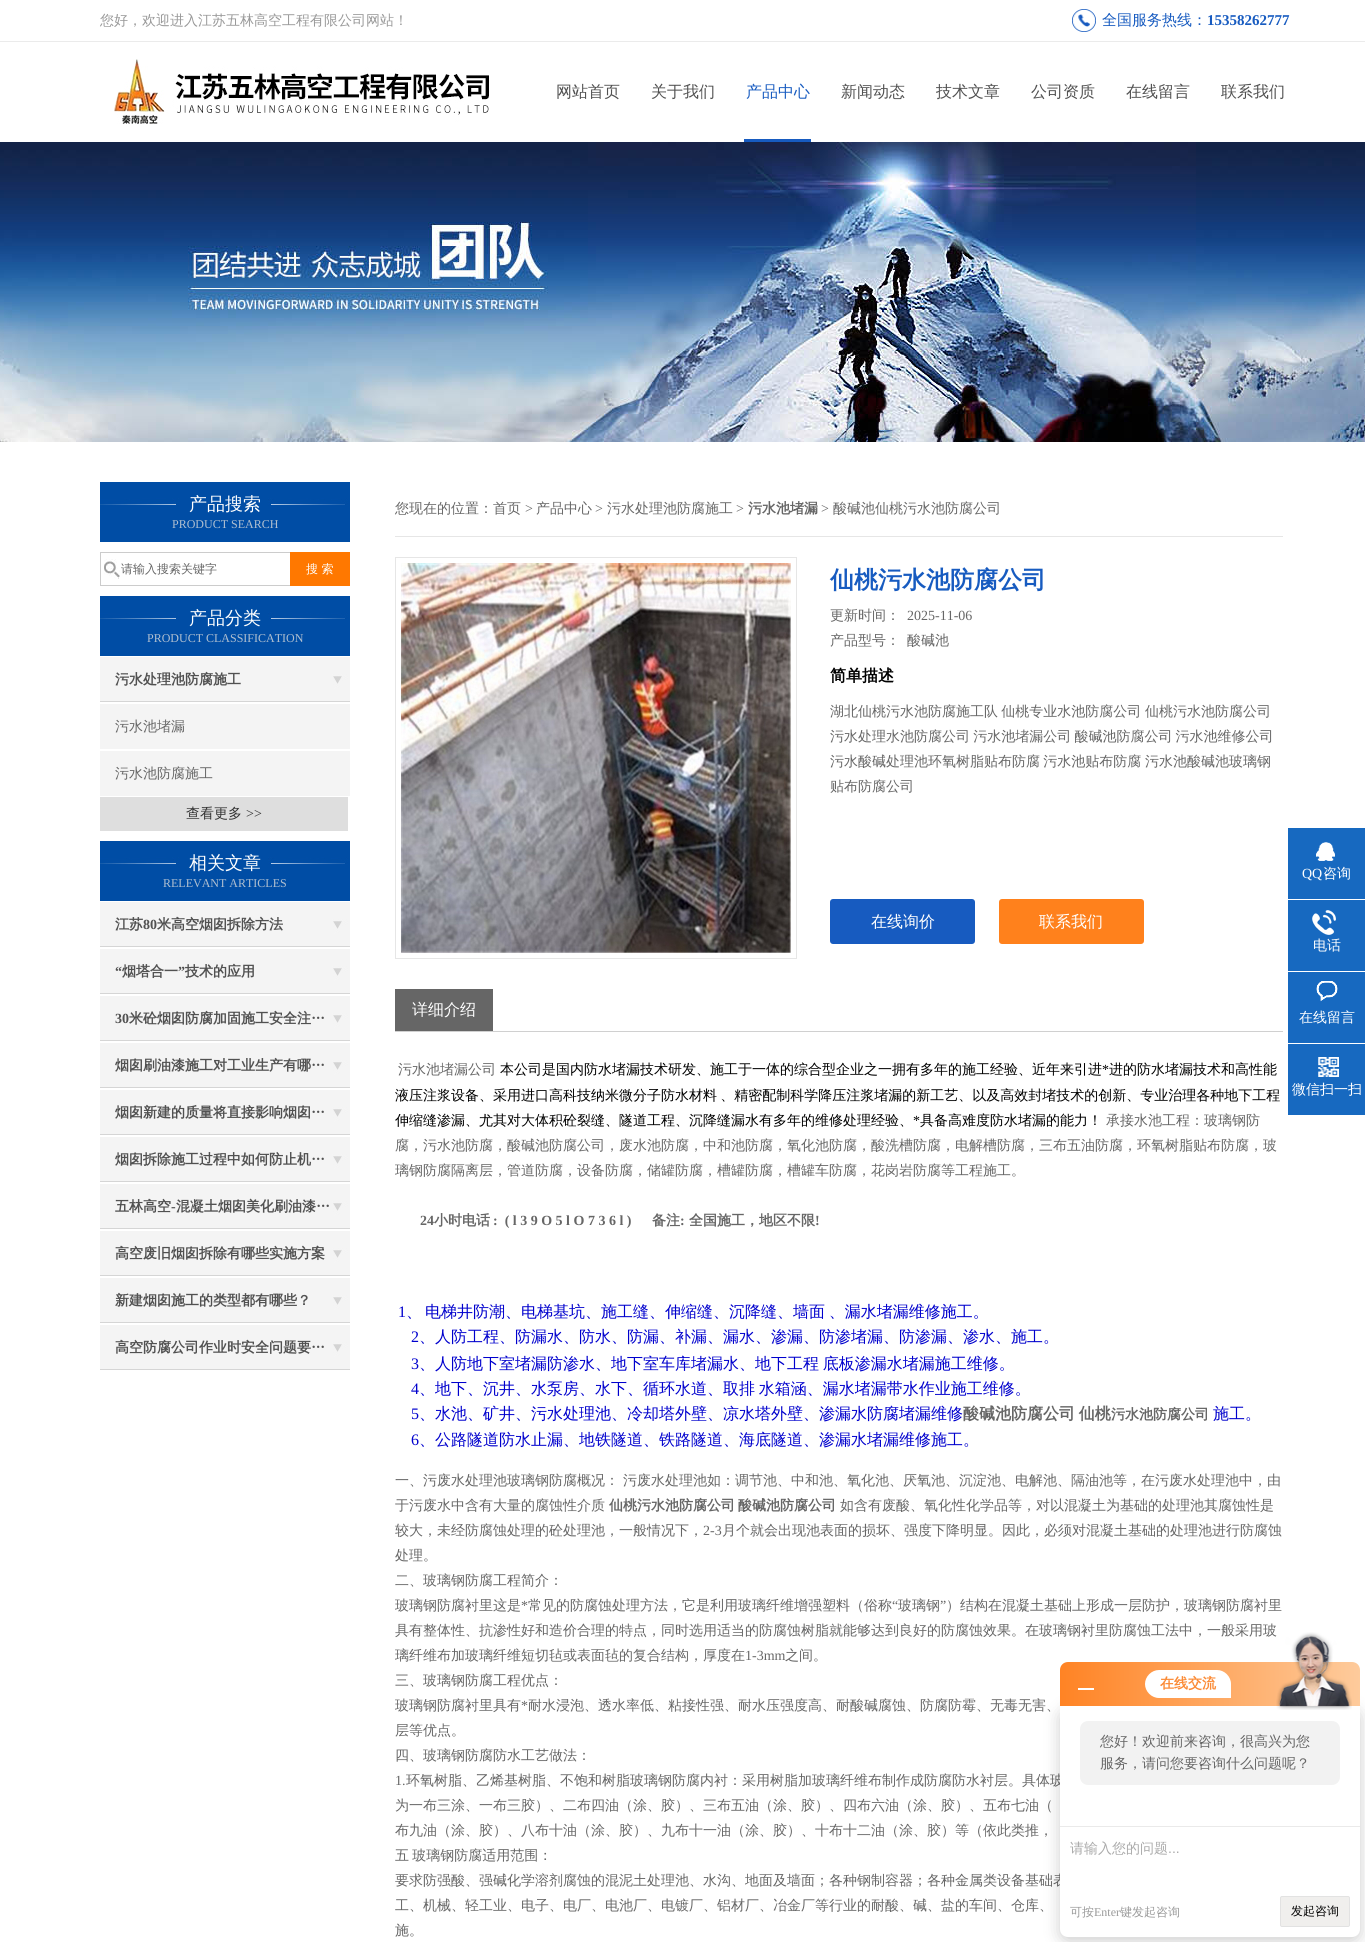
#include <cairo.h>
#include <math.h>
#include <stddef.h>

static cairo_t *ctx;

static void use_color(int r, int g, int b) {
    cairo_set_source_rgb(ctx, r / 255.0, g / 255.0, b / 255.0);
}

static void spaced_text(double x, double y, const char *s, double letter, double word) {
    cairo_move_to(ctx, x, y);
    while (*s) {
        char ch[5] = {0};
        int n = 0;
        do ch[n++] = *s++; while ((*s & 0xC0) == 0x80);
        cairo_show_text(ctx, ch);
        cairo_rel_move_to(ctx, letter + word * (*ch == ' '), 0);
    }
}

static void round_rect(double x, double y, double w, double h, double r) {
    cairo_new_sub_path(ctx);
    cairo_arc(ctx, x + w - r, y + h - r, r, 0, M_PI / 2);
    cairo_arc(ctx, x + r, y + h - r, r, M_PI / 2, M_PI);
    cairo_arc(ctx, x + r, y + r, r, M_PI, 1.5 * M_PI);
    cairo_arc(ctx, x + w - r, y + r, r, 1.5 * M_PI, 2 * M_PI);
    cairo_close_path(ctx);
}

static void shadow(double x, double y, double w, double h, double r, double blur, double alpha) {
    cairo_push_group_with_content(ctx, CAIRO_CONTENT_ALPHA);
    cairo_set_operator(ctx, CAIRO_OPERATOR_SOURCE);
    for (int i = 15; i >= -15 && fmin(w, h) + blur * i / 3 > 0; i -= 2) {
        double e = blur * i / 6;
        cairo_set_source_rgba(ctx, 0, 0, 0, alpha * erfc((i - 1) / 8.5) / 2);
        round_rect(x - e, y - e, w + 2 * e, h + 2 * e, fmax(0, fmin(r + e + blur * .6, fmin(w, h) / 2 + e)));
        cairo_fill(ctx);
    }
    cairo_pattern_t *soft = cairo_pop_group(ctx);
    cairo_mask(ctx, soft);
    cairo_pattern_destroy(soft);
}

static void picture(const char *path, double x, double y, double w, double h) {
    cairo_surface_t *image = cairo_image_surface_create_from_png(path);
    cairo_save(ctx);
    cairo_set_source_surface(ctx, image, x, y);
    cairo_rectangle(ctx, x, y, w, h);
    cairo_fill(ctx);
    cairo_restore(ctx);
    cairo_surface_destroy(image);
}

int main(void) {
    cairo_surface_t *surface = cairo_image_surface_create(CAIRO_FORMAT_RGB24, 1365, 1942);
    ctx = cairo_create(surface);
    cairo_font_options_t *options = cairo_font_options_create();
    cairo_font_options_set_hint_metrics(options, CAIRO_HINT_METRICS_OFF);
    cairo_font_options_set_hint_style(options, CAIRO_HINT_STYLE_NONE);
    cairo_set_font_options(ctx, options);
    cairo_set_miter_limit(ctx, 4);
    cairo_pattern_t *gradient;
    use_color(255, 255, 255);
    cairo_paint(ctx);
    use_color(235, 235, 235);
    cairo_rectangle(ctx, 0, 41, 1365, 1);
    cairo_fill(ctx);
    cairo_select_font_face(ctx, "WenQuanYi Zen Hei Medium", CAIRO_FONT_SLANT_NORMAL, CAIRO_FONT_WEIGHT_NORMAL);
    cairo_set_font_size(ctx, 14);
    use_color(153, 153, 153);
    cairo_move_to(ctx, 100, 25);
    cairo_show_text(ctx, "您好，欢迎进入江苏五林高空工程有限公司网站！");
    picture("img1.png", 1072, 9, 24, 23);
    cairo_set_font_size(ctx, 15);
    use_color(23, 91, 192);
    cairo_move_to(ctx, 1102, 25);
    cairo_show_text(ctx, "全国服务热线：");
    cairo_select_font_face(ctx, "Liberation Serif", CAIRO_FONT_SLANT_NORMAL, CAIRO_FONT_WEIGHT_BOLD);
    cairo_move_to(ctx, 1207, 25);
    cairo_show_text(ctx, "15358262777");
    picture("img2.png", 114, 59, 375, 65);
    cairo_select_font_face(ctx, "WenQuanYi Zen Hei Medium", CAIRO_FONT_SLANT_NORMAL, CAIRO_FONT_WEIGHT_NORMAL);
    cairo_set_font_size(ctx, 16);
    use_color(81, 81, 81);
    cairo_move_to(ctx, 556, 97);
    cairo_show_text(ctx, "网站首页");
    cairo_move_to(ctx, 651, 97);
    cairo_show_text(ctx, "关于我们");
    use_color(23, 91, 192);
    cairo_move_to(ctx, 746, 97);
    cairo_show_text(ctx, "产品中心");
    cairo_rectangle(ctx, 744, 139, 67, 3);
    cairo_fill(ctx);
    use_color(81, 81, 81);
    cairo_move_to(ctx, 841, 97);
    cairo_show_text(ctx, "新闻动态");
    cairo_move_to(ctx, 936, 97);
    cairo_show_text(ctx, "技术文章");
    cairo_move_to(ctx, 1031, 97);
    cairo_show_text(ctx, "公司资质");
    cairo_move_to(ctx, 1126, 97);
    cairo_show_text(ctx, "在线留言");
    cairo_move_to(ctx, 1221, 97);
    cairo_show_text(ctx, "联系我们");
    picture("img3.png", 0, 142, 1365, 300);
    picture("img4.png", 100, 482, 250, 60);
    cairo_set_font_size(ctx, 18);
    use_color(255, 255, 255);
    cairo_move_to(ctx, 189, 510);
    cairo_show_text(ctx, "产品搜索");
    cairo_select_font_face(ctx, "Liberation Serif", CAIRO_FONT_SLANT_NORMAL, CAIRO_FONT_WEIGHT_NORMAL);
    cairo_set_font_size(ctx, 12);
    use_color(176, 191, 208);
    cairo_move_to(ctx, 172, 528);
    cairo_show_text(ctx, "PRODUCT SEARCH");
    picture("img5.png", 104, 559, 16, 20);
    use_color(204, 204, 204);
    cairo_rectangle(ctx, 100, 552, 190, 1);
    cairo_fill(ctx);
    cairo_rectangle(ctx, 100, 585, 190, 1);
    cairo_fill(ctx);
    cairo_rectangle(ctx, 100, 552, 1, 34);
    cairo_fill(ctx);
    cairo_select_font_face(ctx, "WenQuanYi Zen Hei Medium", CAIRO_FONT_SLANT_NORMAL, CAIRO_FONT_WEIGHT_NORMAL);
    use_color(102, 102, 102);
    cairo_move_to(ctx, 121, 573);
    cairo_show_text(ctx, "请输入搜索关键字");
    use_color(255, 120, 0);
    cairo_rectangle(ctx, 290, 552, 60, 34);
    cairo_fill(ctx);
    use_color(255, 255, 255);
    cairo_move_to(ctx, 306, 573);
    cairo_show_text(ctx, "搜 索");
    picture("img4.png", 100, 596, 250, 60);
    cairo_set_font_size(ctx, 18);
    cairo_move_to(ctx, 189, 624);
    cairo_show_text(ctx, "产品分类");
    cairo_select_font_face(ctx, "Liberation Serif", CAIRO_FONT_SLANT_NORMAL, CAIRO_FONT_WEIGHT_NORMAL);
    cairo_set_font_size(ctx, 12);
    use_color(176, 191, 208);
    cairo_move_to(ctx, 147, 642);
    cairo_show_text(ctx, "PRODUCT CLASSIFICATION");
    picture("img6.png", 100, 657, 250, 45);
    cairo_select_font_face(ctx, "WenQuanYi Zen Hei", CAIRO_FONT_SLANT_NORMAL, CAIRO_FONT_WEIGHT_BOLD);
    cairo_set_font_size(ctx, 14);
    use_color(81, 81, 81);
    cairo_move_to(ctx, 115, 684);
    cairo_show_text(ctx, "污水处理池防腐施工");
    use_color(244, 244, 244);
    cairo_rectangle(ctx, 100, 704, 250, 45);
    cairo_fill(ctx);
    cairo_select_font_face(ctx, "WenQuanYi Zen Hei Medium", CAIRO_FONT_SLANT_NORMAL, CAIRO_FONT_WEIGHT_NORMAL);
    use_color(102, 102, 102);
    cairo_move_to(ctx, 115, 731);
    cairo_show_text(ctx, "污水池堵漏");
    use_color(244, 244, 244);
    cairo_rectangle(ctx, 100, 751, 250, 45);
    cairo_fill(ctx);
    use_color(102, 102, 102);
    cairo_move_to(ctx, 115, 778);
    cairo_show_text(ctx, "污水池防腐施工");
    use_color(222, 222, 222);
    cairo_rectangle(ctx, 100, 797, 248, 34);
    cairo_fill(ctx);
    use_color(51, 51, 51);
    cairo_move_to(ctx, 186, 818);
    cairo_show_text(ctx, "查看更多");
    cairo_select_font_face(ctx, "Liberation Serif", CAIRO_FONT_SLANT_NORMAL, CAIRO_FONT_WEIGHT_NORMAL);
    cairo_move_to(ctx, 246, 818);
    cairo_show_text(ctx, ">>");
    picture("img4.png", 100, 841, 250, 60);
    cairo_select_font_face(ctx, "WenQuanYi Zen Hei Medium", CAIRO_FONT_SLANT_NORMAL, CAIRO_FONT_WEIGHT_NORMAL);
    cairo_set_font_size(ctx, 18);
    use_color(255, 255, 255);
    cairo_move_to(ctx, 189, 869);
    cairo_show_text(ctx, "相关文章");
    cairo_select_font_face(ctx, "Liberation Serif", CAIRO_FONT_SLANT_NORMAL, CAIRO_FONT_WEIGHT_NORMAL);
    cairo_set_font_size(ctx, 12);
    use_color(176, 191, 208);
    cairo_move_to(ctx, 163, 887);
    cairo_show_text(ctx, "RELEVANT ARTICLES");
    picture("img6.png", 100, 902, 250, 45);
    cairo_select_font_face(ctx, "WenQuanYi Zen Hei", CAIRO_FONT_SLANT_NORMAL, CAIRO_FONT_WEIGHT_BOLD);
    cairo_set_font_size(ctx, 14);
    use_color(81, 81, 81);
    cairo_move_to(ctx, 115, 929);
    cairo_show_text(ctx, "江苏");
    cairo_select_font_face(ctx, "Liberation Serif", CAIRO_FONT_SLANT_NORMAL, CAIRO_FONT_WEIGHT_BOLD);
    cairo_move_to(ctx, 143, 929);
    cairo_show_text(ctx, "80");
    cairo_select_font_face(ctx, "WenQuanYi Zen Hei", CAIRO_FONT_SLANT_NORMAL, CAIRO_FONT_WEIGHT_BOLD);
    cairo_move_to(ctx, 157, 929);
    cairo_show_text(ctx, "米高空烟囱拆除方法");
    picture("img6.png", 100, 949, 250, 45);
    cairo_select_font_face(ctx, "Liberation Serif", CAIRO_FONT_SLANT_NORMAL, CAIRO_FONT_WEIGHT_BOLD);
    cairo_move_to(ctx, 115, 976);
    cairo_show_text(ctx, "“");
    cairo_select_font_face(ctx, "WenQuanYi Zen Hei", CAIRO_FONT_SLANT_NORMAL, CAIRO_FONT_WEIGHT_BOLD);
    cairo_move_to(ctx, 122, 976);
    cairo_show_text(ctx, "烟塔合一");
    cairo_select_font_face(ctx, "Liberation Serif", CAIRO_FONT_SLANT_NORMAL, CAIRO_FONT_WEIGHT_BOLD);
    cairo_move_to(ctx, 178, 976);
    cairo_show_text(ctx, "”");
    cairo_select_font_face(ctx, "WenQuanYi Zen Hei", CAIRO_FONT_SLANT_NORMAL, CAIRO_FONT_WEIGHT_BOLD);
    cairo_move_to(ctx, 185, 976);
    cairo_show_text(ctx, "技术的应用");
    picture("img6.png", 100, 996, 250, 45);
    cairo_select_font_face(ctx, "Liberation Serif", CAIRO_FONT_SLANT_NORMAL, CAIRO_FONT_WEIGHT_BOLD);
    cairo_move_to(ctx, 115, 1023);
    cairo_show_text(ctx, "30");
    cairo_select_font_face(ctx, "WenQuanYi Zen Hei", CAIRO_FONT_SLANT_NORMAL, CAIRO_FONT_WEIGHT_BOLD);
    cairo_move_to(ctx, 129, 1023);
    cairo_show_text(ctx, "米砼烟囱防腐加固施工安全注…");
    picture("img6.png", 100, 1043, 250, 45);
    cairo_move_to(ctx, 115, 1070);
    cairo_show_text(ctx, "烟囱刷油漆施工对工业生产有哪…");
    picture("img6.png", 100, 1090, 250, 45);
    cairo_move_to(ctx, 115, 1117);
    cairo_show_text(ctx, "烟囱新建的质量将直接影响烟囱…");
    picture("img6.png", 100, 1137, 250, 45);
    cairo_move_to(ctx, 115, 1164);
    cairo_show_text(ctx, "烟囱拆除施工过程中如何防止机…");
    picture("img6.png", 100, 1184, 250, 45);
    cairo_move_to(ctx, 115, 1211);
    cairo_show_text(ctx, "五林高空");
    cairo_select_font_face(ctx, "Liberation Serif", CAIRO_FONT_SLANT_NORMAL, CAIRO_FONT_WEIGHT_BOLD);
    cairo_move_to(ctx, 171, 1211);
    cairo_show_text(ctx, "-");
    cairo_select_font_face(ctx, "WenQuanYi Zen Hei", CAIRO_FONT_SLANT_NORMAL, CAIRO_FONT_WEIGHT_BOLD);
    cairo_move_to(ctx, 176, 1211);
    cairo_show_text(ctx, "混凝土烟囱美化刷油漆…");
    picture("img6.png", 100, 1231, 250, 45);
    cairo_move_to(ctx, 115, 1258);
    cairo_show_text(ctx, "高空废旧烟囱拆除有哪些实施方案");
    picture("img6.png", 100, 1278, 250, 45);
    cairo_move_to(ctx, 115, 1305);
    cairo_show_text(ctx, "新建烟囱施工的类型都有哪些？");
    picture("img6.png", 100, 1325, 250, 45);
    cairo_move_to(ctx, 115, 1352);
    cairo_show_text(ctx, "高空防腐公司作业时安全问题要…");
    use_color(230, 230, 230);
    cairo_rectangle(ctx, 395, 536, 888, 1);
    cairo_fill(ctx);
    cairo_select_font_face(ctx, "WenQuanYi Zen Hei Medium", CAIRO_FONT_SLANT_NORMAL, CAIRO_FONT_WEIGHT_NORMAL);
    use_color(102, 102, 102);
    cairo_move_to(ctx, 395, 513);
    cairo_show_text(ctx, "您现在的位置：首页");
    cairo_select_font_face(ctx, "Liberation Serif", CAIRO_FONT_SLANT_NORMAL, CAIRO_FONT_WEIGHT_NORMAL);
    cairo_move_to(ctx, 525, 513);
    cairo_show_text(ctx, ">");
    cairo_select_font_face(ctx, "WenQuanYi Zen Hei Medium", CAIRO_FONT_SLANT_NORMAL, CAIRO_FONT_WEIGHT_NORMAL);
    cairo_move_to(ctx, 536, 513);
    cairo_show_text(ctx, "产品中心");
    cairo_select_font_face(ctx, "Liberation Serif", CAIRO_FONT_SLANT_NORMAL, CAIRO_FONT_WEIGHT_NORMAL);
    cairo_move_to(ctx, 595, 513);
    cairo_show_text(ctx, ">");
    cairo_select_font_face(ctx, "WenQuanYi Zen Hei Medium", CAIRO_FONT_SLANT_NORMAL, CAIRO_FONT_WEIGHT_NORMAL);
    cairo_move_to(ctx, 607, 513);
    cairo_show_text(ctx, "污水处理池防腐施工");
    cairo_select_font_face(ctx, "Liberation Serif", CAIRO_FONT_SLANT_NORMAL, CAIRO_FONT_WEIGHT_NORMAL);
    cairo_move_to(ctx, 736, 513);
    cairo_show_text(ctx, ">");
    cairo_select_font_face(ctx, "WenQuanYi Zen Hei", CAIRO_FONT_SLANT_NORMAL, CAIRO_FONT_WEIGHT_BOLD);
    cairo_move_to(ctx, 748, 513);
    cairo_show_text(ctx, "污水池堵漏");
    cairo_select_font_face(ctx, "Liberation Serif", CAIRO_FONT_SLANT_NORMAL, CAIRO_FONT_WEIGHT_NORMAL);
    cairo_move_to(ctx, 821, 513);
    cairo_show_text(ctx, ">");
    cairo_select_font_face(ctx, "WenQuanYi Zen Hei Medium", CAIRO_FONT_SLANT_NORMAL, CAIRO_FONT_WEIGHT_NORMAL);
    cairo_move_to(ctx, 833, 513);
    cairo_show_text(ctx, "酸碱池仙桃污水池防腐公司");
    cairo_rectangle(ctx, 395.5, 557.5, 401, 401);
    use_color(230, 230, 230);
    cairo_set_line_width(ctx, 1);
    cairo_stroke(ctx);
    picture("img7.png", 401, 563, 390, 390);
    cairo_select_font_face(ctx, "WenQuanYi Zen Hei", CAIRO_FONT_SLANT_NORMAL, CAIRO_FONT_WEIGHT_BOLD);
    cairo_set_font_size(ctx, 24);
    use_color(23, 91, 192);
    cairo_move_to(ctx, 830, 588);
    cairo_show_text(ctx, "仙桃污水池防腐公司");
    cairo_select_font_face(ctx, "WenQuanYi Zen Hei Medium", CAIRO_FONT_SLANT_NORMAL, CAIRO_FONT_WEIGHT_NORMAL);
    cairo_set_font_size(ctx, 14);
    use_color(102, 102, 102);
    cairo_move_to(ctx, 830, 620);
    cairo_show_text(ctx, "更新时间：");
    cairo_select_font_face(ctx, "Liberation Serif", CAIRO_FONT_SLANT_NORMAL, CAIRO_FONT_WEIGHT_NORMAL);
    cairo_move_to(ctx, 907, 620);
    cairo_show_text(ctx, "2025-11-06");
    cairo_select_font_face(ctx, "WenQuanYi Zen Hei Medium", CAIRO_FONT_SLANT_NORMAL, CAIRO_FONT_WEIGHT_NORMAL);
    cairo_move_to(ctx, 830, 645);
    cairo_show_text(ctx, "产品型号：");
    cairo_move_to(ctx, 907, 645);
    cairo_show_text(ctx, "酸碱池");
    cairo_select_font_face(ctx, "WenQuanYi Zen Hei", CAIRO_FONT_SLANT_NORMAL, CAIRO_FONT_WEIGHT_BOLD);
    cairo_set_font_size(ctx, 16);
    use_color(0, 0, 0);
    cairo_move_to(ctx, 830, 681);
    cairo_show_text(ctx, "简单描述");
    cairo_select_font_face(ctx, "WenQuanYi Zen Hei Medium", CAIRO_FONT_SLANT_NORMAL, CAIRO_FONT_WEIGHT_NORMAL);
    cairo_set_font_size(ctx, 14);
    use_color(102, 102, 102);
    spaced_text(830, 716, "湖北仙桃污水池防腐施工队 仙桃专业水池防腐公司", 0, -1);
    cairo_move_to(ctx, 1145, 716);
    cairo_show_text(ctx, "仙桃污水池防腐公司");
    spaced_text(830, 741, "污水处理水池防腐公司 污水池堵漏公司 酸碱池防腐公司 污水池维修公司", 0, -1);
    spaced_text(830, 766, "污水酸碱处理池环氧树脂贴布防腐 污水池贴布防腐", 0, -1);
    cairo_move_to(ctx, 1145, 766);
    cairo_show_text(ctx, "污水池酸碱池玻璃钢");
    cairo_move_to(ctx, 830, 791);
    cairo_show_text(ctx, "贴布防腐公司");
    use_color(23, 91, 192);
    round_rect(830, 899, 145, 45, 3);
    cairo_fill(ctx);
    cairo_set_font_size(ctx, 16);
    use_color(255, 255, 255);
    cairo_move_to(ctx, 871, 927);
    cairo_show_text(ctx, "在线询价");
    use_color(255, 129, 28);
    round_rect(999, 899, 145, 45, 3);
    cairo_fill(ctx);
    use_color(255, 255, 255);
    cairo_move_to(ctx, 1039, 927);
    cairo_show_text(ctx, "联系我们");
    use_color(208, 208, 208);
    cairo_rectangle(ctx, 395, 1031, 888, 1);
    cairo_fill(ctx);
    use_color(102, 102, 102);
    cairo_rectangle(ctx, 395, 989, 98, 42);
    cairo_fill(ctx);
    use_color(255, 255, 255);
    cairo_move_to(ctx, 412, 1015);
    cairo_show_text(ctx, "详细介绍");
    cairo_set_font_size(ctx, 14);
    use_color(102, 102, 102);
    cairo_move_to(ctx, 398, 1074);
    cairo_show_text(ctx, "污水池堵漏公司");
    use_color(0, 0, 0);
    cairo_move_to(ctx, 500, 1074);
    cairo_show_text(ctx, "本公司是国内防水堵漏技术研发、施工于一体的综合型企业之一拥有多年的施工经验、近年来引进");
    cairo_select_font_face(ctx, "Liberation Serif", CAIRO_FONT_SLANT_NORMAL, CAIRO_FONT_WEIGHT_NORMAL);
    cairo_move_to(ctx, 1102, 1074);
    cairo_show_text(ctx, "*");
    cairo_select_font_face(ctx, "WenQuanYi Zen Hei Medium", CAIRO_FONT_SLANT_NORMAL, CAIRO_FONT_WEIGHT_NORMAL);
    cairo_move_to(ctx, 1109, 1074);
    cairo_show_text(ctx, "进的防水堵漏技术和高性能");
    spaced_text(395, 1100, "液压注浆设备、采用进口高科技纳米微分子防水材料 、精密配制科学降压注浆堵漏的新工艺、以及高效封堵技术的创新、专业治理各种地下工程", 0, -1);
    cairo_move_to(ctx, 395, 1125);
    cairo_show_text(ctx, "伸缩缝渗漏、尤其对大体积砼裂缝、隧道工程、沉降缝漏水有多年的维修处理经验、");
    cairo_select_font_face(ctx, "Liberation Serif", CAIRO_FONT_SLANT_NORMAL, CAIRO_FONT_WEIGHT_NORMAL);
    cairo_move_to(ctx, 913, 1125);
    cairo_show_text(ctx, "*");
    cairo_select_font_face(ctx, "WenQuanYi Zen Hei Medium", CAIRO_FONT_SLANT_NORMAL, CAIRO_FONT_WEIGHT_NORMAL);
    cairo_move_to(ctx, 920, 1125);
    cairo_show_text(ctx, "具备高难度防水堵漏的能力！");
    use_color(102, 102, 102);
    cairo_move_to(ctx, 1106, 1125);
    cairo_show_text(ctx, "承接水池工程：玻璃钢防");
    cairo_move_to(ctx, 395, 1150);
    cairo_show_text(ctx, "腐，污水池防腐，酸碱池防腐公司，废水池防腐，中和池防腐，氧化池防腐，酸洗槽防腐，电解槽防腐，三布五油防腐，环氧树脂贴布防腐，玻");
    cairo_move_to(ctx, 395, 1175);
    cairo_show_text(ctx, "璃钢防腐隔离层，管道防腐，设备防腐，储罐防腐，槽罐防腐，槽罐车防腐，花岗岩防腐等工程施工。");
    cairo_select_font_face(ctx, "Liberation Serif", CAIRO_FONT_SLANT_NORMAL, CAIRO_FONT_WEIGHT_BOLD);
    cairo_move_to(ctx, 420, 1225);
    cairo_show_text(ctx, "24");
    cairo_select_font_face(ctx, "WenQuanYi Zen Hei", CAIRO_FONT_SLANT_NORMAL, CAIRO_FONT_WEIGHT_BOLD);
    cairo_move_to(ctx, 434, 1225);
    cairo_show_text(ctx, "小时电话");
    cairo_select_font_face(ctx, "Liberation Serif", CAIRO_FONT_SLANT_NORMAL, CAIRO_FONT_WEIGHT_BOLD);
    cairo_move_to(ctx, 493, 1225);
    cairo_show_text(ctx, ":  ( l 3 9 O 5 l O 7 3 6 l )");
    cairo_select_font_face(ctx, "WenQuanYi Zen Hei", CAIRO_FONT_SLANT_NORMAL, CAIRO_FONT_WEIGHT_BOLD);
    cairo_move_to(ctx, 652, 1225);
    cairo_show_text(ctx, "备注");
    cairo_select_font_face(ctx, "Liberation Serif", CAIRO_FONT_SLANT_NORMAL, CAIRO_FONT_WEIGHT_BOLD);
    cairo_move_to(ctx, 680, 1225);
    cairo_show_text(ctx, ":");
    cairo_select_font_face(ctx, "WenQuanYi Zen Hei", CAIRO_FONT_SLANT_NORMAL, CAIRO_FONT_WEIGHT_BOLD);
    cairo_move_to(ctx, 689, 1225);
    cairo_show_text(ctx, "全国施工，地区不限");
    cairo_select_font_face(ctx, "Liberation Serif", CAIRO_FONT_SLANT_NORMAL, CAIRO_FONT_WEIGHT_BOLD);
    cairo_move_to(ctx, 815, 1225);
    cairo_show_text(ctx, "!");
    cairo_select_font_face(ctx, "Liberation Serif", CAIRO_FONT_SLANT_NORMAL, CAIRO_FONT_WEIGHT_NORMAL);
    cairo_set_font_size(ctx, 16);
    use_color(0, 0, 205);
    cairo_move_to(ctx, 398, 1317);
    cairo_show_text(ctx, "1");
    cairo_select_font_face(ctx, "WenQuanYi Zen Hei Medium", CAIRO_FONT_SLANT_NORMAL, CAIRO_FONT_WEIGHT_NORMAL);
    cairo_move_to(ctx, 406, 1317);
    cairo_show_text(ctx, "、");
    spaced_text(425, 1317, "电梯井防潮、电梯基坑、施工缝、伸缩缝、沉降缝、墙面 、漏水堵漏维修施工。", 0, -1);
    cairo_select_font_face(ctx, "Liberation Serif", CAIRO_FONT_SLANT_NORMAL, CAIRO_FONT_WEIGHT_NORMAL);
    cairo_move_to(ctx, 411, 1342);
    cairo_show_text(ctx, "2");
    cairo_select_font_face(ctx, "WenQuanYi Zen Hei Medium", CAIRO_FONT_SLANT_NORMAL, CAIRO_FONT_WEIGHT_NORMAL);
    cairo_move_to(ctx, 419, 1342);
    cairo_show_text(ctx, "、人防工程、防漏水、防水、防漏、补漏、漏水、渗漏、防渗堵漏、防渗漏、渗水、施工。");
    cairo_select_font_face(ctx, "Liberation Serif", CAIRO_FONT_SLANT_NORMAL, CAIRO_FONT_WEIGHT_NORMAL);
    cairo_move_to(ctx, 411, 1369);
    cairo_show_text(ctx, "3");
    cairo_select_font_face(ctx, "WenQuanYi Zen Hei Medium", CAIRO_FONT_SLANT_NORMAL, CAIRO_FONT_WEIGHT_NORMAL);
    cairo_move_to(ctx, 419, 1369);
    cairo_show_text(ctx, "、");
    spaced_text(435, 1369, "人防地下室堵漏防渗水、地下室车库堵漏水、地下工程 底板渗漏水堵漏施工维修。", 0, -1);
    cairo_select_font_face(ctx, "Liberation Serif", CAIRO_FONT_SLANT_NORMAL, CAIRO_FONT_WEIGHT_NORMAL);
    cairo_move_to(ctx, 411, 1394);
    cairo_show_text(ctx, "4");
    cairo_select_font_face(ctx, "WenQuanYi Zen Hei Medium", CAIRO_FONT_SLANT_NORMAL, CAIRO_FONT_WEIGHT_NORMAL);
    cairo_move_to(ctx, 419, 1394);
    cairo_show_text(ctx, "、");
    spaced_text(435, 1394, "地下、沉井、水泵房、水下、循环水道、取排 水箱涵、漏水堵漏带水作业施工维修。", 0, -1);
    cairo_select_font_face(ctx, "Liberation Serif", CAIRO_FONT_SLANT_NORMAL, CAIRO_FONT_WEIGHT_NORMAL);
    cairo_move_to(ctx, 411, 1419);
    cairo_show_text(ctx, "5");
    cairo_select_font_face(ctx, "WenQuanYi Zen Hei Medium", CAIRO_FONT_SLANT_NORMAL, CAIRO_FONT_WEIGHT_NORMAL);
    cairo_move_to(ctx, 419, 1419);
    cairo_show_text(ctx, "、水池、矿井、污水处理池、冷却塔外壁、凉水塔外壁、渗漏水防腐堵漏维修");
    cairo_select_font_face(ctx, "WenQuanYi Zen Hei", CAIRO_FONT_SLANT_NORMAL, CAIRO_FONT_WEIGHT_BOLD);
    use_color(102, 102, 102);
    spaced_text(963, 1419, "酸碱池防腐公司 仙桃", 0, -1);
    cairo_set_font_size(ctx, 14);
    cairo_move_to(ctx, 1111, 1419);
    cairo_show_text(ctx, "污水池防腐公司");
    cairo_select_font_face(ctx, "WenQuanYi Zen Hei Medium", CAIRO_FONT_SLANT_NORMAL, CAIRO_FONT_WEIGHT_NORMAL);
    cairo_set_font_size(ctx, 16);
    use_color(0, 0, 205);
    cairo_move_to(ctx, 1213, 1419);
    cairo_show_text(ctx, "施工。");
    cairo_select_font_face(ctx, "Liberation Serif", CAIRO_FONT_SLANT_NORMAL, CAIRO_FONT_WEIGHT_NORMAL);
    cairo_move_to(ctx, 411, 1445);
    cairo_show_text(ctx, "6");
    cairo_select_font_face(ctx, "WenQuanYi Zen Hei Medium", CAIRO_FONT_SLANT_NORMAL, CAIRO_FONT_WEIGHT_NORMAL);
    cairo_move_to(ctx, 419, 1445);
    cairo_show_text(ctx, "、公路隧道防水止漏、地铁隧道、铁路隧道、海底隧道、渗漏水堵漏维修施工。");
    cairo_set_font_size(ctx, 14);
    use_color(102, 102, 102);
    cairo_move_to(ctx, 395, 1485);
    cairo_show_text(ctx, "一、污废水处理池玻璃钢防腐概况：");
    cairo_move_to(ctx, 623, 1485);
    cairo_show_text(ctx, "污废水处理池如：调节池、中和池、氧化池、厌氧池、沉淀池、电解池、隔油池等，在污废水处理池中，由");
    cairo_move_to(ctx, 395, 1510);
    cairo_show_text(ctx, "于污废水中含有大量的腐蚀性介质");
    cairo_select_font_face(ctx, "WenQuanYi Zen Hei", CAIRO_FONT_SLANT_NORMAL, CAIRO_FONT_WEIGHT_BOLD);
    cairo_move_to(ctx, 609, 1510);
    cairo_show_text(ctx, "仙桃污水池防腐公司");
    cairo_move_to(ctx, 738, 1510);
    cairo_show_text(ctx, "酸碱池防腐公司");
    cairo_select_font_face(ctx, "WenQuanYi Zen Hei Medium", CAIRO_FONT_SLANT_NORMAL, CAIRO_FONT_WEIGHT_NORMAL);
    cairo_move_to(ctx, 840, 1510);
    cairo_show_text(ctx, "如含有废酸、氧化性化学品等，对以混凝土为基础的处理池其腐蚀性是");
    cairo_move_to(ctx, 395, 1535);
    cairo_show_text(ctx, "较大，未经防腐蚀处理的砼处理池，一般情况下，");
    cairo_select_font_face(ctx, "Liberation Serif", CAIRO_FONT_SLANT_NORMAL, CAIRO_FONT_WEIGHT_NORMAL);
    cairo_move_to(ctx, 703, 1535);
    cairo_show_text(ctx, "2-3");
    cairo_select_font_face(ctx, "WenQuanYi Zen Hei Medium", CAIRO_FONT_SLANT_NORMAL, CAIRO_FONT_WEIGHT_NORMAL);
    cairo_move_to(ctx, 722, 1535);
    cairo_show_text(ctx, "月个就会出现池表面的损坏、强度下降明显。因此，必须对混凝土基础的处理池进行防腐蚀");
    cairo_move_to(ctx, 395, 1560);
    cairo_show_text(ctx, "处理。");
    cairo_move_to(ctx, 395, 1585);
    cairo_show_text(ctx, "二、玻璃钢防腐工程简介：");
    cairo_move_to(ctx, 395, 1610);
    cairo_show_text(ctx, "玻璃钢防腐衬里这是");
    cairo_select_font_face(ctx, "Liberation Serif", CAIRO_FONT_SLANT_NORMAL, CAIRO_FONT_WEIGHT_NORMAL);
    cairo_move_to(ctx, 521, 1610);
    cairo_show_text(ctx, "*");
    cairo_select_font_face(ctx, "WenQuanYi Zen Hei Medium", CAIRO_FONT_SLANT_NORMAL, CAIRO_FONT_WEIGHT_NORMAL);
    cairo_move_to(ctx, 528, 1610);
    cairo_show_text(ctx, "常见的防腐蚀处理方法，它是利用玻璃纤维增强塑料（俗称");
    cairo_select_font_face(ctx, "Liberation Serif", CAIRO_FONT_SLANT_NORMAL, CAIRO_FONT_WEIGHT_NORMAL);
    cairo_move_to(ctx, 892, 1610);
    cairo_show_text(ctx, "“");
    cairo_select_font_face(ctx, "WenQuanYi Zen Hei Medium", CAIRO_FONT_SLANT_NORMAL, CAIRO_FONT_WEIGHT_NORMAL);
    cairo_move_to(ctx, 898, 1610);
    cairo_show_text(ctx, "玻璃钢");
    cairo_select_font_face(ctx, "Liberation Serif", CAIRO_FONT_SLANT_NORMAL, CAIRO_FONT_WEIGHT_NORMAL);
    cairo_move_to(ctx, 940, 1610);
    cairo_show_text(ctx, "”");
    cairo_select_font_face(ctx, "WenQuanYi Zen Hei Medium", CAIRO_FONT_SLANT_NORMAL, CAIRO_FONT_WEIGHT_NORMAL);
    cairo_move_to(ctx, 946, 1610);
    cairo_show_text(ctx, "）结构在混凝土基础上形成一层防护，玻璃钢防腐衬里");
    cairo_move_to(ctx, 395, 1635);
    cairo_show_text(ctx, "具有整体性、抗渗性好和造价合理的特点，同时选用适当的防腐蚀树脂就能够达到良好的防腐蚀效果。在玻璃钢衬里防腐蚀工法中，一般采用玻");
    cairo_move_to(ctx, 395, 1660);
    cairo_show_text(ctx, "璃纤维布加玻璃纤维短切毡或表面毡的复合结构，厚度在");
    cairo_select_font_face(ctx, "Liberation Serif", CAIRO_FONT_SLANT_NORMAL, CAIRO_FONT_WEIGHT_NORMAL);
    cairo_move_to(ctx, 745, 1660);
    cairo_show_text(ctx, "1-3mm");
    cairo_select_font_face(ctx, "WenQuanYi Zen Hei Medium", CAIRO_FONT_SLANT_NORMAL, CAIRO_FONT_WEIGHT_NORMAL);
    cairo_move_to(ctx, 785, 1660);
    cairo_show_text(ctx, "之间。");
    cairo_move_to(ctx, 395, 1685);
    cairo_show_text(ctx, "三、玻璃钢防腐工程优点：");
    cairo_move_to(ctx, 395, 1710);
    cairo_show_text(ctx, "玻璃钢防腐衬里具有");
    cairo_select_font_face(ctx, "Liberation Serif", CAIRO_FONT_SLANT_NORMAL, CAIRO_FONT_WEIGHT_NORMAL);
    cairo_move_to(ctx, 521, 1710);
    cairo_show_text(ctx, "*");
    cairo_select_font_face(ctx, "WenQuanYi Zen Hei Medium", CAIRO_FONT_SLANT_NORMAL, CAIRO_FONT_WEIGHT_NORMAL);
    cairo_move_to(ctx, 528, 1710);
    cairo_show_text(ctx, "耐水浸泡、透水率低、粘接性强、耐水压强度高、耐酸碱腐蚀、防腐防霉、无毒无害、");
    cairo_move_to(ctx, 395, 1735);
    cairo_show_text(ctx, "层等优点。");
    cairo_move_to(ctx, 395, 1760);
    cairo_show_text(ctx, "四、玻璃钢防腐防水工艺做法：");
    cairo_select_font_face(ctx, "Liberation Serif", CAIRO_FONT_SLANT_NORMAL, CAIRO_FONT_WEIGHT_NORMAL);
    cairo_move_to(ctx, 395, 1785);
    cairo_show_text(ctx, "1.");
    cairo_select_font_face(ctx, "WenQuanYi Zen Hei Medium", CAIRO_FONT_SLANT_NORMAL, CAIRO_FONT_WEIGHT_NORMAL);
    cairo_move_to(ctx, 406, 1785);
    cairo_show_text(ctx, "环氧树脂、乙烯基树脂、不饱和树脂玻璃钢防腐内衬：采用树脂加玻璃纤维布制作成防腐防水衬层。具体玻");
    cairo_move_to(ctx, 395, 1810);
    cairo_show_text(ctx, "为一布三涂、一布三胶）、二布四油（涂、胶）、三布五油（涂、胶）、四布六油（涂、胶）、五布七油（");
    cairo_move_to(ctx, 395, 1835);
    cairo_show_text(ctx, "布九油（涂、胶）、八布十油（涂、胶）、九布十一油（涂、胶）、十布十二油（涂、胶）等（依此类推，");
    spaced_text(395, 1860, "五 玻璃钢防腐适用范围：", 0, -1);
    cairo_move_to(ctx, 395, 1885);
    cairo_show_text(ctx, "要求防强酸、强碱化学溶剂腐蚀的混泥土处理池、水沟、地面及墙面；各种钢制容器；各种金属类设备基础表");
    cairo_move_to(ctx, 395, 1910);
    cairo_show_text(ctx, "工、机械、轻工业、电子、电厂、电池厂、电镀厂、铝材厂、冶金厂等行业的耐酸、碱、盐的车间、仓库、");
    cairo_move_to(ctx, 395, 1935);
    cairo_show_text(ctx, "施。");
    use_color(23, 105, 192);
    cairo_rectangle(ctx, 1288, 828, 77, 71);
    cairo_fill(ctx);
    picture("img8.png", 1316, 842, 19, 19);
    cairo_select_font_face(ctx, "Liberation Serif", CAIRO_FONT_SLANT_NORMAL, CAIRO_FONT_WEIGHT_NORMAL);
    use_color(255, 255, 255);
    cairo_move_to(ctx, 1302, 878);
    cairo_show_text(ctx, "QQ");
    cairo_select_font_face(ctx, "WenQuanYi Zen Hei Medium", CAIRO_FONT_SLANT_NORMAL, CAIRO_FONT_WEIGHT_NORMAL);
    cairo_move_to(ctx, 1323, 878);
    cairo_show_text(ctx, "咨询");
    use_color(23, 105, 192);
    cairo_rectangle(ctx, 1288, 900, 77, 71);
    cairo_fill(ctx);
    picture("img9.png", 1312, 910, 24, 25);
    use_color(255, 255, 255);
    cairo_move_to(ctx, 1313, 950);
    cairo_show_text(ctx, "电话");
    use_color(23, 105, 192);
    cairo_rectangle(ctx, 1288, 972, 77, 71);
    cairo_fill(ctx);
    picture("img10.png", 1316, 981, 22, 21);
    use_color(255, 255, 255);
    cairo_move_to(ctx, 1299, 1022);
    cairo_show_text(ctx, "在线留言");
    use_color(23, 105, 192);
    cairo_rectangle(ctx, 1288, 1044, 77, 71);
    cairo_fill(ctx);
    picture("img11.png", 1318, 1057, 21, 20);
    use_color(255, 255, 255);
    cairo_move_to(ctx, 1292, 1094);
    cairo_show_text(ctx, "微信扫一扫");
    use_color(0, 0, 0);
    shadow(1060, 1710, 300, 231, 8, 8, 0.2);
    gradient = cairo_pattern_create_linear(1060, 1684, 1360, 1684);
    cairo_pattern_add_color_stop_rgba(gradient, 0, 1, 0.514, 0.141, 1);
    cairo_pattern_add_color_stop_rgba(gradient, 1, 0.996, 0.796, 0.612, 1);
    cairo_set_source(ctx, gradient);
    cairo_pattern_destroy(gradient);
    cairo_new_path(ctx);
    cairo_move_to(ctx, 1068, 1662);
    cairo_line_to(ctx, 1352, 1662);
    cairo_curve_to(ctx, 1356.5, 1662, 1360, 1665.5, 1360, 1670);
    cairo_line_to(ctx, 1360, 1706);
    cairo_line_to(ctx, 1060, 1706);
    cairo_line_to(ctx, 1060, 1670);
    cairo_curve_to(ctx, 1060, 1665.5, 1063.5, 1662, 1068, 1662);
    cairo_close_path(ctx);
    cairo_fill(ctx);
    use_color(255, 255, 255);
    cairo_rectangle(ctx, 1078, 1688, 16, 2);
    cairo_fill(ctx);
    cairo_new_path(ctx);
    cairo_move_to(ctx, 1159, 1670);
    cairo_line_to(ctx, 1217, 1670);
    cairo_curve_to(ctx, 1224.5, 1670, 1231, 1676.5, 1231, 1684);
    cairo_line_to(ctx, 1231, 1698);
    cairo_line_to(ctx, 1159, 1698);
    cairo_curve_to(ctx, 1151.5, 1698, 1145, 1691.5, 1145, 1684);
    cairo_curve_to(ctx, 1145, 1676.5, 1151.5, 1670, 1159, 1670);
    cairo_close_path(ctx);
    cairo_fill(ctx);
    cairo_select_font_face(ctx, "WenQuanYi Zen Hei", CAIRO_FONT_SLANT_NORMAL, CAIRO_FONT_WEIGHT_BOLD);
    use_color(251, 139, 54);
    cairo_move_to(ctx, 1160, 1688);
    cairo_show_text(ctx, "在线交流");
    use_color(255, 255, 255);
    cairo_new_path(ctx);
    cairo_move_to(ctx, 1060, 1706);
    cairo_line_to(ctx, 1360, 1706);
    cairo_line_to(ctx, 1360, 1929);
    cairo_curve_to(ctx, 1360, 1933.5, 1356.5, 1937, 1352, 1937);
    cairo_line_to(ctx, 1068, 1937);
    cairo_curve_to(ctx, 1063.5, 1937, 1060, 1933.5, 1060, 1929);
    cairo_close_path(ctx);
    cairo_fill(ctx);
    picture("img12.png", 1276, 1632, 76, 78);
    use_color(242, 242, 242);
    round_rect(1080, 1721, 260, 64, 8);
    cairo_fill(ctx);
    cairo_select_font_face(ctx, "WenQuanYi Zen Hei Medium", CAIRO_FONT_SLANT_NORMAL, CAIRO_FONT_WEIGHT_NORMAL);
    use_color(102, 102, 102);
    cairo_move_to(ctx, 1100, 1746);
    cairo_show_text(ctx, "您好！欢迎前来咨询，很高兴为您");
    cairo_move_to(ctx, 1100, 1768);
    cairo_show_text(ctx, "服务，请问您要咨询什么问题呢？");
    use_color(234, 234, 234);
    cairo_rectangle(ctx, 1060, 1826, 300, 1);
    cairo_fill(ctx);
    use_color(170, 170, 170);
    cairo_move_to(ctx, 1070, 1853);
    cairo_show_text(ctx, "请输入您的问题");
    cairo_select_font_face(ctx, "Liberation Sans", CAIRO_FONT_SLANT_NORMAL, CAIRO_FONT_WEIGHT_NORMAL);
    cairo_move_to(ctx, 1168, 1853);
    cairo_show_text(ctx, "...");
    cairo_select_font_face(ctx, "WenQuanYi Zen Hei Medium", CAIRO_FONT_SLANT_NORMAL, CAIRO_FONT_WEIGHT_NORMAL);
    cairo_set_font_size(ctx, 12);
    use_color(153, 153, 153);
    cairo_move_to(ctx, 1070, 1916);
    cairo_show_text(ctx, "可按");
    cairo_select_font_face(ctx, "Liberation Serif", CAIRO_FONT_SLANT_NORMAL, CAIRO_FONT_WEIGHT_NORMAL);
    cairo_move_to(ctx, 1094, 1916);
    cairo_show_text(ctx, "Enter");
    cairo_select_font_face(ctx, "WenQuanYi Zen Hei Medium", CAIRO_FONT_SLANT_NORMAL, CAIRO_FONT_WEIGHT_NORMAL);
    cairo_move_to(ctx, 1120, 1916);
    cairo_show_text(ctx, "键发起咨询");
    use_color(240, 239, 237);
    round_rect(1280.5, 1896.5, 69, 30, 1.5);
    cairo_fill_preserve(ctx);
    use_color(226, 226, 226);
    cairo_stroke(ctx);
    use_color(0, 0, 0);
    cairo_move_to(ctx, 1291, 1915);
    cairo_show_text(ctx, "发起咨询");
    cairo_surface_write_to_png(surface, "result.png");
    cairo_font_options_destroy(options);
    cairo_destroy(ctx);
    cairo_surface_destroy(surface);
    return 0;
}
